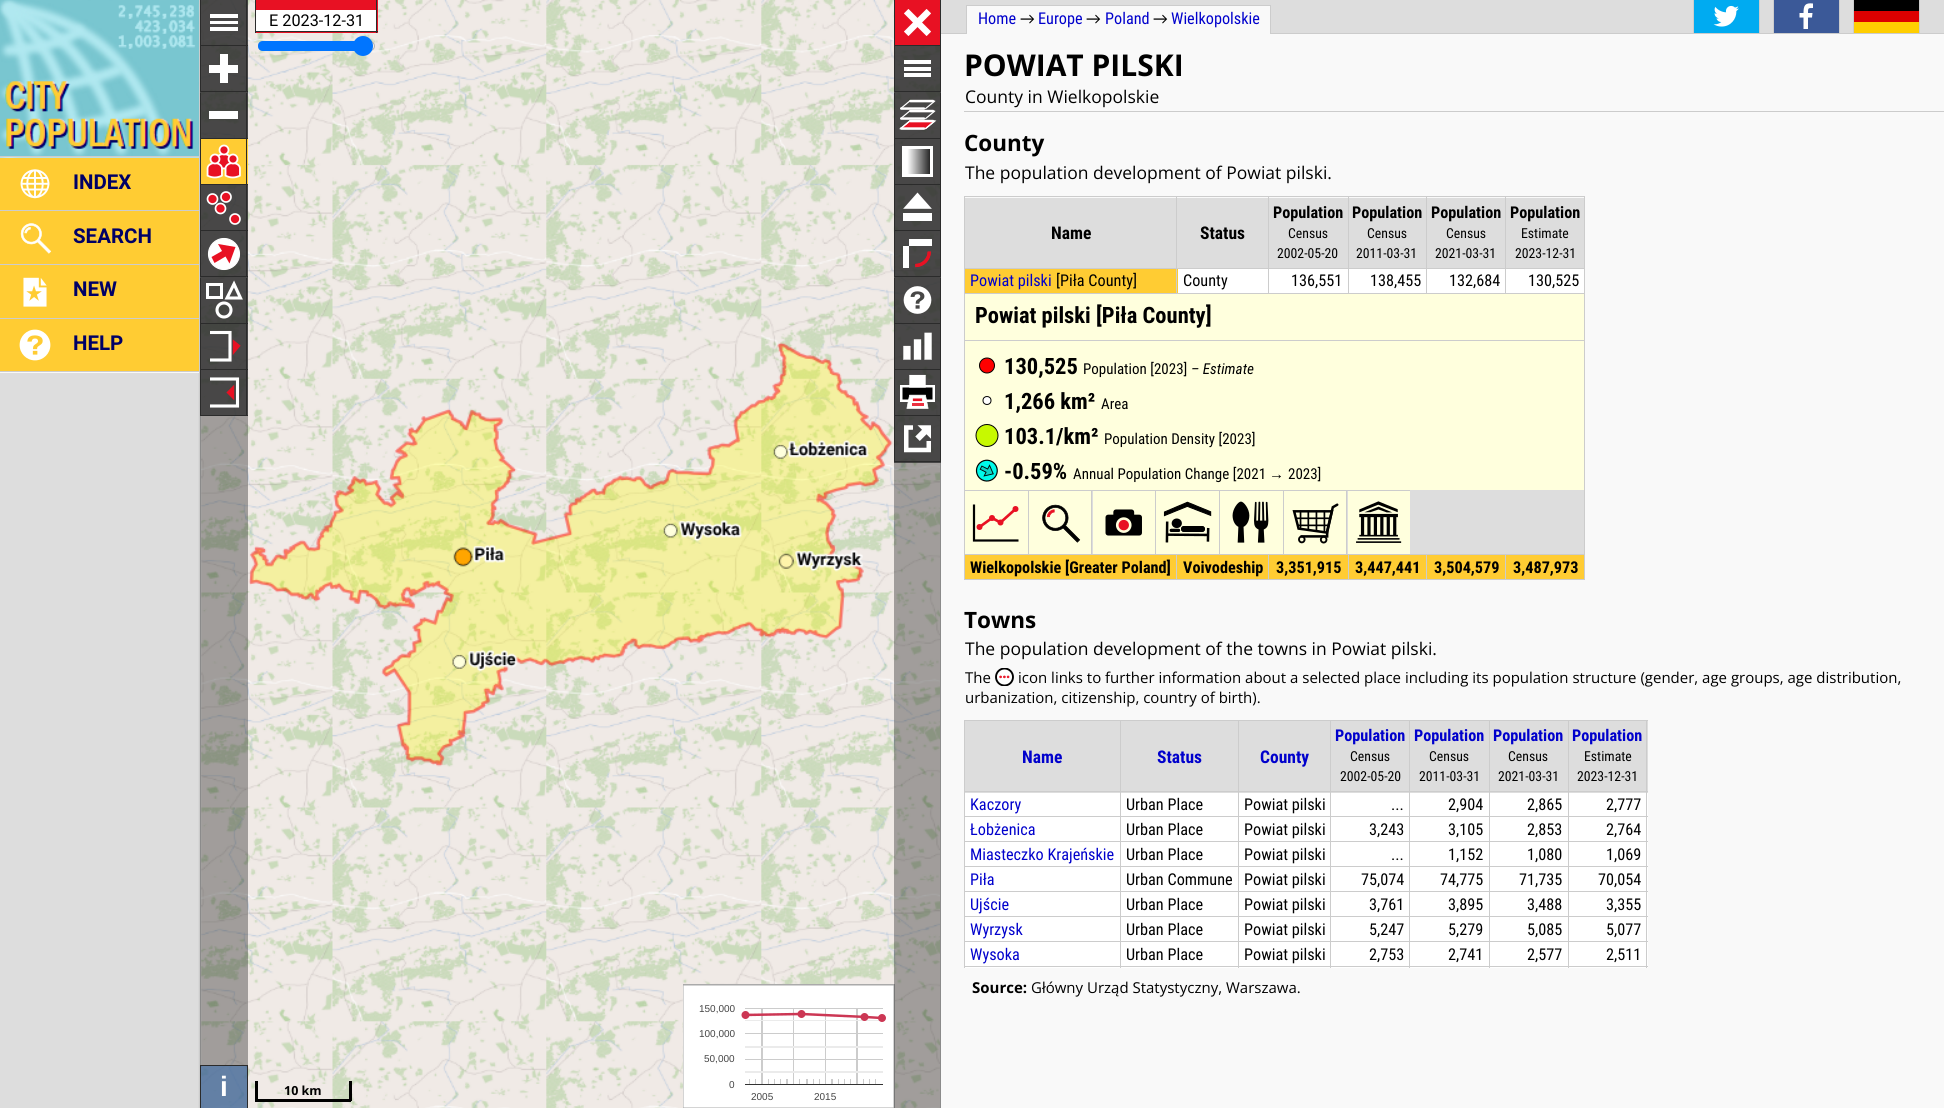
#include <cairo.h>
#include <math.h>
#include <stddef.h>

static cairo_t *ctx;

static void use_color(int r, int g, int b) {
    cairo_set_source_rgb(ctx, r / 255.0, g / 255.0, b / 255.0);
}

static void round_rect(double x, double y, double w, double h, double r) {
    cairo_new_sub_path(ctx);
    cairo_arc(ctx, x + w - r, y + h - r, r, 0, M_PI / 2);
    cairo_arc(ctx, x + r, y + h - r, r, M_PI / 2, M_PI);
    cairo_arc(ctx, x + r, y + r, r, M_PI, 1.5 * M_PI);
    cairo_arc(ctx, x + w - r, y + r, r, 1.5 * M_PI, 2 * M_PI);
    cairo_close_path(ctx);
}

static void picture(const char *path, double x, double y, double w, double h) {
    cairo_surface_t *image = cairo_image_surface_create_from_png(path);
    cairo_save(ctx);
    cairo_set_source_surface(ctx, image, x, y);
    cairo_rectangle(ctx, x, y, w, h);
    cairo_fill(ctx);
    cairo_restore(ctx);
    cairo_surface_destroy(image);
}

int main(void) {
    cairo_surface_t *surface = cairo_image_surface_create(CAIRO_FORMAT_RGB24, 1944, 1108);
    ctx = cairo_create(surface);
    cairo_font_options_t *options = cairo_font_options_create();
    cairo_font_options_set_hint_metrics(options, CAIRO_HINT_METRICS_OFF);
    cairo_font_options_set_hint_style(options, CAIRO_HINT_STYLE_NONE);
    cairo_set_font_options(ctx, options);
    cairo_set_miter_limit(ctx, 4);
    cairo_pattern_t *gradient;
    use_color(249, 249, 249);
    cairo_paint(ctx);
    cairo_rectangle(ctx, 200.5, -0.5, 740, 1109);
    use_color(204, 204, 204);
    cairo_set_line_width(ctx, 1);
    cairo_stroke(ctx);
    picture("img11.png", 201, 0, 739, 1108);
    cairo_set_source_rgba(ctx, 0.169, 0.169, 0.169, 0.4);
    cairo_rectangle(ctx, 200, 0, 48, 1108);
    cairo_fill(ctx);
    cairo_set_source_rgba(ctx, 0.169, 0.169, 0.169, 0.75);
    cairo_rectangle(ctx, 201, 0, 47, 45);
    cairo_fill(ctx);
    use_color(43, 43, 43);
    cairo_rectangle(ctx, 200, 45, 48, 1);
    cairo_fill(ctx);
    cairo_rectangle(ctx, 200, 0, 1, 45);
    cairo_fill(ctx);
    use_color(255, 255, 255);
    cairo_rectangle(ctx, 210, 14, 28, 4);
    cairo_fill(ctx);
    use_color(43, 43, 43);
    cairo_rectangle(ctx, 246, 0, 1, 45);
    cairo_fill(ctx);
    use_color(255, 255, 255);
    cairo_rectangle(ctx, 210, 21, 28, 3);
    cairo_fill(ctx);
    cairo_rectangle(ctx, 210, 27, 28, 4);
    cairo_fill(ctx);
    cairo_set_source_rgba(ctx, 0.169, 0.169, 0.169, 0.75);
    cairo_rectangle(ctx, 200, 46, 48, 47);
    cairo_fill(ctx);
    use_color(43, 43, 43);
    cairo_rectangle(ctx, 200, 91, 48, 1);
    cairo_fill(ctx);
    cairo_rectangle(ctx, 200, 46, 1, 45);
    cairo_fill(ctx);
    use_color(255, 255, 255);
    cairo_rectangle(ctx, 209, 65, 29, 8);
    cairo_fill(ctx);
    cairo_rectangle(ctx, 220, 54, 8, 29);
    cairo_fill(ctx);
    use_color(43, 43, 43);
    cairo_rectangle(ctx, 246, 46, 1, 45);
    cairo_fill(ctx);
    cairo_set_source_rgba(ctx, 0.169, 0.169, 0.169, 0.75);
    cairo_rectangle(ctx, 201, 93, 47, 45);
    cairo_fill(ctx);
    use_color(43, 43, 43);
    cairo_rectangle(ctx, 200, 138, 48, 1);
    cairo_fill(ctx);
    cairo_rectangle(ctx, 200, 93, 1, 45);
    cairo_fill(ctx);
    use_color(255, 255, 255);
    cairo_rectangle(ctx, 209, 111, 29, 8);
    cairo_fill(ctx);
    use_color(43, 43, 43);
    cairo_rectangle(ctx, 246, 93, 1, 45);
    cairo_fill(ctx);
    use_color(255, 204, 51);
    cairo_rectangle(ctx, 201, 139, 47, 45);
    cairo_fill(ctx);
    use_color(43, 43, 43);
    cairo_rectangle(ctx, 200, 184, 48, 1);
    cairo_fill(ctx);
    cairo_rectangle(ctx, 200, 139, 1, 45);
    cairo_fill(ctx);
    picture("img1.png", 206, 144, 35, 35);
    cairo_rectangle(ctx, 246, 139, 1, 45);
    cairo_fill(ctx);
    cairo_set_source_rgba(ctx, 0.169, 0.169, 0.169, 0.75);
    cairo_rectangle(ctx, 201, 185, 47, 45);
    cairo_fill(ctx);
    use_color(43, 43, 43);
    cairo_rectangle(ctx, 200, 230, 48, 1);
    cairo_fill(ctx);
    cairo_rectangle(ctx, 200, 185, 1, 45);
    cairo_fill(ctx);
    picture("img2.png", 206, 191, 35, 34);
    cairo_rectangle(ctx, 246, 185, 1, 45);
    cairo_fill(ctx);
    cairo_set_source_rgba(ctx, 0.169, 0.169, 0.169, 0.75);
    cairo_rectangle(ctx, 200, 231, 48, 47);
    cairo_fill(ctx);
    use_color(43, 43, 43);
    cairo_rectangle(ctx, 200, 276, 48, 1);
    cairo_fill(ctx);
    cairo_rectangle(ctx, 200, 231, 1, 45);
    cairo_fill(ctx);
    use_color(255, 255, 255);
    cairo_arc(ctx, 224, 254, 15.5, 0, 2 * M_PI);
    cairo_fill_preserve(ctx);
    cairo_set_line_width(ctx, 1.1);
    cairo_stroke(ctx);
    use_color(43, 43, 43);
    cairo_rectangle(ctx, 246, 231, 1, 45);
    cairo_fill(ctx);
    use_color(232, 17, 35);
    cairo_new_path(ctx);
    cairo_move_to(ctx, 211.5, 257);
    cairo_line_to(ctx, 222, 251);
    cairo_line_to(ctx, 218, 244);
    cairo_line_to(ctx, 235.5, 247);
    cairo_line_to(ctx, 229.5, 263.5);
    cairo_line_to(ctx, 225.5, 256.5);
    cairo_line_to(ctx, 214.5, 263);
    cairo_close_path(ctx);
    cairo_fill(ctx);
    cairo_set_source_rgba(ctx, 0.169, 0.169, 0.169, 0.75);
    cairo_rectangle(ctx, 201, 278, 47, 45);
    cairo_fill(ctx);
    use_color(43, 43, 43);
    cairo_rectangle(ctx, 200, 323, 48, 1);
    cairo_fill(ctx);
    cairo_rectangle(ctx, 200, 278, 1, 45);
    cairo_fill(ctx);
    cairo_rectangle(ctx, 207.5, 284.5, 14, 13);
    use_color(255, 255, 255);
    cairo_set_line_width(ctx, 3);
    cairo_stroke(ctx);
    cairo_new_path(ctx);
    cairo_move_to(ctx, 227, 298);
    cairo_line_to(ctx, 240.5, 298);
    cairo_line_to(ctx, 234, 284);
    cairo_close_path(ctx);
    cairo_set_line_width(ctx, 3.1);
    cairo_stroke(ctx);
    use_color(43, 43, 43);
    cairo_rectangle(ctx, 246, 278, 1, 45);
    cairo_fill(ctx);
    cairo_arc(ctx, 224, 310, 7, 0, 2 * M_PI);
    use_color(255, 255, 255);
    cairo_stroke(ctx);
    cairo_set_source_rgba(ctx, 0.169, 0.169, 0.169, 0.75);
    cairo_rectangle(ctx, 201, 324, 47, 45);
    cairo_fill(ctx);
    use_color(43, 43, 43);
    cairo_rectangle(ctx, 200, 369, 48, 1);
    cairo_fill(ctx);
    cairo_rectangle(ctx, 200, 324, 1, 45);
    cairo_fill(ctx);
    cairo_new_path(ctx);
    cairo_move_to(ctx, 210, 360);
    cairo_line_to(ctx, 230, 360);
    cairo_line_to(ctx, 230, 332.5);
    cairo_line_to(ctx, 210, 332.5);
    use_color(255, 255, 255);
    cairo_stroke(ctx);
    cairo_new_path(ctx);
    cairo_move_to(ctx, 237.5, 346);
    cairo_line_to(ctx, 235, 349);
    cairo_line_to(ctx, 235, 344);
    cairo_close_path(ctx);
    use_color(232, 17, 35);
    cairo_set_line_width(ctx, 4.4);
    cairo_stroke(ctx);
    use_color(43, 43, 43);
    cairo_rectangle(ctx, 246, 324, 1, 45);
    cairo_fill(ctx);
    cairo_set_source_rgba(ctx, 0.169, 0.169, 0.169, 0.75);
    cairo_rectangle(ctx, 201, 370, 47, 45);
    cairo_fill(ctx);
    use_color(43, 43, 43);
    cairo_rectangle(ctx, 200, 415, 48, 1);
    cairo_fill(ctx);
    cairo_rectangle(ctx, 200, 370, 1, 45);
    cairo_fill(ctx);
    cairo_new_path(ctx);
    cairo_move_to(ctx, 210, 406);
    cairo_line_to(ctx, 237.5, 406);
    cairo_line_to(ctx, 237.5, 379);
    cairo_line_to(ctx, 210, 379);
    use_color(255, 255, 255);
    cairo_set_line_width(ctx, 3.1);
    cairo_stroke(ctx);
    use_color(43, 43, 43);
    cairo_rectangle(ctx, 246, 370, 1, 45);
    cairo_fill(ctx);
    cairo_new_path(ctx);
    cairo_move_to(ctx, 229.5, 392.5);
    cairo_line_to(ctx, 232, 395);
    cairo_line_to(ctx, 232, 390);
    cairo_close_path(ctx);
    use_color(232, 17, 35);
    cairo_set_line_width(ctx, 4.4);
    cairo_stroke(ctx);
    cairo_rectangle(ctx, 256, 0, 122, 33);
    cairo_fill(ctx);
    use_color(43, 43, 43);
    cairo_rectangle(ctx, 376, 0, 1, 33);
    cairo_fill(ctx);
    cairo_rectangle(ctx, 255, 31, 123, 1);
    cairo_fill(ctx);
    cairo_rectangle(ctx, 255, 0, 1, 33);
    cairo_fill(ctx);
    use_color(255, 255, 255);
    cairo_rectangle(ctx, 256, 10, 120, 21);
    cairo_fill(ctx);
    cairo_select_font_face(ctx, "Roboto", CAIRO_FONT_SLANT_NORMAL, CAIRO_FONT_WEIGHT_NORMAL);
    cairo_set_font_size(ctx, 16.25);
    use_color(0, 0, 0);
    cairo_move_to(ctx, 269, 26);
    cairo_show_text(ctx, "E 2023-12-31");
    use_color(239, 239, 239);
    round_rect(258.5, 41.5, 116, 9, 4.5);
    cairo_fill_preserve(ctx);
    use_color(178, 178, 178);
    cairo_set_line_width(ctx, 1);
    cairo_stroke(ctx);
    use_color(0, 117, 255);
    cairo_new_path(ctx);
    cairo_move_to(ctx, 263, 41);
    cairo_line_to(ctx, 363, 41);
    cairo_line_to(ctx, 363, 51);
    cairo_line_to(ctx, 263, 51);
    cairo_curve_to(ctx, 260, 51, 258, 49, 258, 46);
    cairo_curve_to(ctx, 258, 43, 260, 41, 263, 41);
    cairo_close_path(ctx);
    cairo_fill(ctx);
    cairo_arc(ctx, 363, 46, 10, 0, 2 * M_PI);
    cairo_fill(ctx);
    picture("img12.png", 683, 984, 212, 124);
    cairo_set_source_rgba(ctx, 0.169, 0.169, 0.169, 0.4);
    cairo_rectangle(ctx, 894, 46, 47, 1062);
    cairo_fill(ctx);
    use_color(232, 17, 35);
    cairo_rectangle(ctx, 895, 0, 45, 45);
    cairo_fill(ctx);
    use_color(43, 43, 43);
    cairo_rectangle(ctx, 894, 45, 47, 1);
    cairo_fill(ctx);
    cairo_rectangle(ctx, 894, 0, 1, 45);
    cairo_fill(ctx);
    picture("img3.png", 904, 9, 27, 27);
    cairo_rectangle(ctx, 940, 0, 1, 45);
    cairo_fill(ctx);
    cairo_set_source_rgba(ctx, 0.169, 0.169, 0.169, 0.75);
    cairo_rectangle(ctx, 894, 46, 47, 47);
    cairo_fill(ctx);
    use_color(43, 43, 43);
    cairo_rectangle(ctx, 894, 91, 47, 1);
    cairo_fill(ctx);
    cairo_rectangle(ctx, 894, 46, 1, 45);
    cairo_fill(ctx);
    picture("img4.png", 904, 60, 27, 17);
    cairo_rectangle(ctx, 940, 46, 1, 45);
    cairo_fill(ctx);
    cairo_set_source_rgba(ctx, 0.169, 0.169, 0.169, 0.75);
    cairo_rectangle(ctx, 895, 93, 45, 45);
    cairo_fill(ctx);
    use_color(43, 43, 43);
    cairo_rectangle(ctx, 894, 138, 47, 1);
    cairo_fill(ctx);
    cairo_rectangle(ctx, 894, 93, 1, 45);
    cairo_fill(ctx);
    picture("img5.png", 899, 99, 38, 31);
    cairo_rectangle(ctx, 940, 93, 1, 45);
    cairo_fill(ctx);
    cairo_set_source_rgba(ctx, 0.169, 0.169, 0.169, 0.75);
    cairo_rectangle(ctx, 895, 139, 45, 45);
    cairo_fill(ctx);
    use_color(43, 43, 43);
    cairo_rectangle(ctx, 894, 184, 47, 1);
    cairo_fill(ctx);
    cairo_rectangle(ctx, 894, 139, 1, 45);
    cairo_fill(ctx);
    gradient = cairo_pattern_create_linear(903, 147, 934, 147);
    cairo_pattern_add_color_stop_rgba(gradient, 0.14, 1, 1, 1, 1);
    cairo_pattern_add_color_stop_rgba(gradient, 1, 0, 0, 0, 1);
    cairo_set_source(ctx, gradient);
    cairo_pattern_destroy(gradient);
    cairo_rectangle(ctx, 905, 149, 25, 25);
    cairo_fill(ctx);
    cairo_rectangle(ctx, 903.5, 147.5, 28, 28);
    use_color(255, 255, 255);
    cairo_set_line_width(ctx, 3);
    cairo_stroke(ctx);
    use_color(43, 43, 43);
    cairo_rectangle(ctx, 940, 139, 1, 45);
    cairo_fill(ctx);
    cairo_set_source_rgba(ctx, 0.169, 0.169, 0.169, 0.75);
    cairo_rectangle(ctx, 895, 185, 45, 45);
    cairo_fill(ctx);
    use_color(43, 43, 43);
    cairo_rectangle(ctx, 894, 230, 47, 1);
    cairo_fill(ctx);
    cairo_rectangle(ctx, 894, 185, 1, 45);
    cairo_fill(ctx);
    use_color(255, 255, 255);
    cairo_new_path(ctx);
    cairo_move_to(ctx, 906, 207.5);
    cairo_line_to(ctx, 929, 207.5);
    cairo_line_to(ctx, 917.5, 194.5);
    cairo_close_path(ctx);
    cairo_fill_preserve(ctx);
    cairo_set_line_width(ctx, 2.6);
    cairo_stroke(ctx);
    use_color(43, 43, 43);
    cairo_rectangle(ctx, 940, 185, 1, 45);
    cairo_fill(ctx);
    use_color(255, 255, 255);
    cairo_rectangle(ctx, 903, 213, 29, 8);
    cairo_fill(ctx);
    cairo_set_source_rgba(ctx, 0.169, 0.169, 0.169, 0.75);
    cairo_rectangle(ctx, 894, 231, 47, 47);
    cairo_fill(ctx);
    use_color(43, 43, 43);
    cairo_rectangle(ctx, 894, 276, 47, 1);
    cairo_fill(ctx);
    cairo_rectangle(ctx, 894, 231, 1, 45);
    cairo_fill(ctx);
    picture("img6.png", 903, 239, 29, 29);
    cairo_rectangle(ctx, 940, 231, 1, 45);
    cairo_fill(ctx);
    cairo_set_source_rgba(ctx, 0.169, 0.169, 0.169, 0.75);
    cairo_rectangle(ctx, 895, 278, 45, 45);
    cairo_fill(ctx);
    use_color(43, 43, 43);
    cairo_rectangle(ctx, 894, 323, 47, 1);
    cairo_fill(ctx);
    cairo_rectangle(ctx, 894, 278, 1, 45);
    cairo_fill(ctx);
    picture("img7.png", 903, 286, 29, 28);
    cairo_rectangle(ctx, 940, 278, 1, 45);
    cairo_fill(ctx);
    cairo_set_source_rgba(ctx, 0.169, 0.169, 0.169, 0.75);
    cairo_rectangle(ctx, 895, 324, 45, 45);
    cairo_fill(ctx);
    use_color(43, 43, 43);
    cairo_rectangle(ctx, 894, 369, 47, 1);
    cairo_fill(ctx);
    cairo_rectangle(ctx, 894, 324, 1, 45);
    cairo_fill(ctx);
    picture("img8.png", 903, 332, 29, 28);
    cairo_rectangle(ctx, 940, 324, 1, 45);
    cairo_fill(ctx);
    cairo_set_source_rgba(ctx, 0.169, 0.169, 0.169, 0.75);
    cairo_rectangle(ctx, 895, 370, 45, 45);
    cairo_fill(ctx);
    use_color(43, 43, 43);
    cairo_rectangle(ctx, 894, 415, 47, 1);
    cairo_fill(ctx);
    cairo_rectangle(ctx, 894, 370, 1, 45);
    cairo_fill(ctx);
    picture("img9.png", 900, 374, 35, 35);
    cairo_rectangle(ctx, 940, 370, 1, 45);
    cairo_fill(ctx);
    cairo_set_source_rgba(ctx, 0.169, 0.169, 0.169, 0.75);
    cairo_rectangle(ctx, 894, 416, 47, 47);
    cairo_fill(ctx);
    use_color(43, 43, 43);
    cairo_rectangle(ctx, 894, 461, 47, 1);
    cairo_fill(ctx);
    cairo_rectangle(ctx, 894, 416, 1, 45);
    cairo_fill(ctx);
    picture("img10.png", 904, 425, 27, 28);
    cairo_rectangle(ctx, 940, 416, 1, 45);
    cairo_fill(ctx);
    cairo_set_source_rgba(ctx, 1, 1, 1, 0.4);
    round_rect(200, 1065, 48, 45, 5);
    cairo_fill(ctx);
    cairo_set_source_rgba(ctx, 0, 0.235, 0.533, 0.5);
    cairo_rectangle(ctx, 200.5, 1065.5, 47, 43);
    cairo_fill_preserve(ctx);
    use_color(43, 43, 43);
    cairo_set_line_width(ctx, 1);
    cairo_stroke(ctx);
    cairo_select_font_face(ctx, "Liberation Sans", CAIRO_FONT_SLANT_NORMAL, CAIRO_FONT_WEIGHT_BOLD);
    cairo_set_font_size(ctx, 28);
    use_color(255, 255, 255);
    cairo_move_to(ctx, 220, 1096);
    cairo_show_text(ctx, "i");
    use_color(0, 0, 0);
    cairo_rectangle(ctx, 349, 1081, 3, 20);
    cairo_fill(ctx);
    cairo_rectangle(ctx, 255, 1099, 96, 3);
    cairo_fill(ctx);
    cairo_rectangle(ctx, 255, 1081, 3, 20);
    cairo_fill(ctx);
    cairo_select_font_face(ctx, "Open Sans", CAIRO_FONT_SLANT_NORMAL, CAIRO_FONT_WEIGHT_BOLD);
    cairo_set_font_size(ctx, 12.5);
    cairo_move_to(ctx, 284, 1095);
    cairo_show_text(ctx, "10 km");
    cairo_select_font_face(ctx, "Liberation Sans", CAIRO_FONT_SLANT_NORMAL, CAIRO_FONT_WEIGHT_NORMAL);
    cairo_set_font_size(ctx, 10);
    use_color(68, 68, 68);
    cairo_move_to(ctx, 699, 1012);
    cairo_show_text(ctx, "150,000");
    cairo_move_to(ctx, 699, 1037);
    cairo_show_text(ctx, "100,000");
    cairo_move_to(ctx, 704, 1062);
    cairo_show_text(ctx, "50,000");
    cairo_move_to(ctx, 729, 1088);
    cairo_show_text(ctx, "0");
    cairo_move_to(ctx, 751, 1100);
    cairo_show_text(ctx, "2005");
    cairo_move_to(ctx, 814, 1100);
    cairo_show_text(ctx, "2015");
    use_color(221, 221, 221);
    cairo_rectangle(ctx, 941, 0, 1003, 33);
    cairo_fill(ctx);
    use_color(204, 204, 204);
    cairo_rectangle(ctx, 941, 33, 1003, 1);
    cairo_fill(ctx);
    use_color(249, 249, 249);
    cairo_rectangle(ctx, 967, 6, 303, 28);
    cairo_fill(ctx);
    use_color(204, 204, 204);
    cairo_rectangle(ctx, 966, 5, 305, 1);
    cairo_fill(ctx);
    cairo_rectangle(ctx, 1270, 5, 1, 29);
    cairo_fill(ctx);
    cairo_rectangle(ctx, 966, 5, 1, 29);
    cairo_fill(ctx);
    cairo_select_font_face(ctx, "Roboto Condensed", CAIRO_FONT_SLANT_NORMAL, CAIRO_FONT_WEIGHT_NORMAL);
    cairo_set_font_size(ctx, 16.25);
    use_color(0, 0, 204);
    cairo_move_to(ctx, 978, 24);
    cairo_show_text(ctx, "Home");
    cairo_select_font_face(ctx, "Carlito", CAIRO_FONT_SLANT_NORMAL, CAIRO_FONT_WEIGHT_NORMAL);
    use_color(0, 0, 0);
    cairo_move_to(ctx, 1020, 24);
    cairo_show_text(ctx, "→");
    cairo_select_font_face(ctx, "Roboto Condensed", CAIRO_FONT_SLANT_NORMAL, CAIRO_FONT_WEIGHT_NORMAL);
    use_color(0, 0, 204);
    cairo_move_to(ctx, 1038, 24);
    cairo_show_text(ctx, "Europe");
    cairo_select_font_face(ctx, "Carlito", CAIRO_FONT_SLANT_NORMAL, CAIRO_FONT_WEIGHT_NORMAL);
    use_color(0, 0, 0);
    cairo_move_to(ctx, 1086, 24);
    cairo_show_text(ctx, "→");
    cairo_select_font_face(ctx, "Roboto Condensed", CAIRO_FONT_SLANT_NORMAL, CAIRO_FONT_WEIGHT_NORMAL);
    use_color(0, 0, 204);
    cairo_move_to(ctx, 1105, 24);
    cairo_show_text(ctx, "Poland");
    cairo_select_font_face(ctx, "Carlito", CAIRO_FONT_SLANT_NORMAL, CAIRO_FONT_WEIGHT_NORMAL);
    use_color(0, 0, 0);
    cairo_move_to(ctx, 1153, 24);
    cairo_show_text(ctx, "→");
    cairo_select_font_face(ctx, "Roboto Condensed", CAIRO_FONT_SLANT_NORMAL, CAIRO_FONT_WEIGHT_NORMAL);
    use_color(0, 0, 204);
    cairo_move_to(ctx, 1171, 24);
    cairo_show_text(ctx, "Wielkopolskie");
    use_color(204, 204, 204);
    cairo_rectangle(ctx, 1693, 0, 1, 34);
    cairo_fill(ctx);
    picture("img13.png", 1694, 0, 65, 33);
    cairo_rectangle(ctx, 1759, 0, 1, 34);
    cairo_fill(ctx);
    cairo_rectangle(ctx, 1773, 0, 1, 34);
    cairo_fill(ctx);
    use_color(59, 89, 152);
    cairo_rectangle(ctx, 1774, 0, 65, 33);
    cairo_fill(ctx);
    use_color(204, 204, 204);
    cairo_rectangle(ctx, 1839, 0, 1, 34);
    cairo_fill(ctx);
    use_color(255, 255, 255);
    cairo_new_path(ctx);
    cairo_move_to(ctx, 1808, 29);
    cairo_line_to(ctx, 1808, 17.5);
    cairo_line_to(ctx, 1812, 17.5);
    cairo_line_to(ctx, 1812.5, 13);
    cairo_line_to(ctx, 1808, 13);
    cairo_curve_to(ctx, 1808, 8, 1808, 8, 1813, 8);
    cairo_line_to(ctx, 1813, 3.5);
    cairo_curve_to(ctx, 1805, 2.5, 1803.5, 5.5, 1803.5, 13);
    cairo_line_to(ctx, 1799.5, 13);
    cairo_line_to(ctx, 1799.5, 17.5);
    cairo_line_to(ctx, 1803.5, 17.5);
    cairo_line_to(ctx, 1803.5, 29);
    cairo_close_path(ctx);
    cairo_fill(ctx);
    use_color(204, 204, 204);
    cairo_rectangle(ctx, 1853, 0, 1, 34);
    cairo_fill(ctx);
    use_color(0, 0, 0);
    cairo_rectangle(ctx, 1854, 0, 65, 11);
    cairo_fill(ctx);
    use_color(204, 204, 204);
    cairo_rectangle(ctx, 1919, 0, 1, 34);
    cairo_fill(ctx);
    use_color(221, 0, 0);
    cairo_rectangle(ctx, 1854, 11, 65, 11);
    cairo_fill(ctx);
    use_color(255, 206, 0);
    cairo_rectangle(ctx, 1854, 22, 65, 11);
    cairo_fill(ctx);
    picture("img14.png", 0, 0, 199, 158);
    use_color(204, 204, 204);
    cairo_rectangle(ctx, 199, 0, 1, 373);
    cairo_fill(ctx);
    cairo_rectangle(ctx, 0, 156, 200, 1);
    cairo_fill(ctx);
    use_color(255, 204, 51);
    cairo_rectangle(ctx, 0, 158, 199, 52);
    cairo_fill(ctx);
    use_color(204, 204, 204);
    cairo_rectangle(ctx, 0, 210, 200, 1);
    cairo_fill(ctx);
    picture("img15.png", 20, 169, 30, 30);
    cairo_select_font_face(ctx, "Roboto", CAIRO_FONT_SLANT_NORMAL, CAIRO_FONT_WEIGHT_BOLD);
    cairo_set_font_size(ctx, 20.5);
    use_color(0, 0, 102);
    cairo_move_to(ctx, 73, 189);
    cairo_show_text(ctx, "INDEX");
    use_color(255, 204, 51);
    cairo_rectangle(ctx, 0, 211, 199, 53);
    cairo_fill(ctx);
    use_color(204, 204, 204);
    cairo_rectangle(ctx, 0, 264, 200, 1);
    cairo_fill(ctx);
    picture("img16.png", 20, 223, 32, 31);
    use_color(0, 0, 102);
    cairo_move_to(ctx, 73, 243);
    cairo_show_text(ctx, "SEARCH");
    use_color(255, 204, 51);
    cairo_rectangle(ctx, 0, 265, 199, 53);
    cairo_fill(ctx);
    use_color(204, 204, 204);
    cairo_rectangle(ctx, 0, 318, 200, 1);
    cairo_fill(ctx);
    picture("img17.png", 23, 277, 24, 30);
    use_color(0, 0, 102);
    cairo_move_to(ctx, 73, 296);
    cairo_show_text(ctx, "NEW");
    use_color(255, 204, 51);
    cairo_rectangle(ctx, 0, 319, 199, 52);
    cairo_fill(ctx);
    use_color(204, 204, 204);
    cairo_rectangle(ctx, 0, 371, 200, 1);
    cairo_fill(ctx);
    picture("img18.png", 19, 329, 32, 32);
    use_color(0, 0, 102);
    cairo_move_to(ctx, 73, 350);
    cairo_show_text(ctx, "HELP");
    use_color(204, 204, 204);
    cairo_rectangle(ctx, 964, 111, 980, 1);
    cairo_fill(ctx);
    cairo_select_font_face(ctx, "Open Sans", CAIRO_FONT_SLANT_NORMAL, CAIRO_FONT_WEIGHT_BOLD);
    cairo_set_font_size(ctx, 30);
    use_color(0, 0, 0);
    cairo_move_to(ctx, 964, 76);
    cairo_show_text(ctx, "POWIAT PILSKI");
    cairo_select_font_face(ctx, "Open Sans", CAIRO_FONT_SLANT_NORMAL, CAIRO_FONT_WEIGHT_NORMAL);
    cairo_set_font_size(ctx, 17.5);
    cairo_move_to(ctx, 965, 103);
    cairo_show_text(ctx, "County in Wielkopolskie");
    cairo_select_font_face(ctx, "Open Sans", CAIRO_FONT_SLANT_NORMAL, CAIRO_FONT_WEIGHT_BOLD);
    cairo_set_font_size(ctx, 22.5);
    cairo_move_to(ctx, 964, 151);
    cairo_show_text(ctx, "County");
    cairo_select_font_face(ctx, "Open Sans", CAIRO_FONT_SLANT_NORMAL, CAIRO_FONT_WEIGHT_NORMAL);
    cairo_set_font_size(ctx, 17.5);
    cairo_move_to(ctx, 965, 179);
    cairo_show_text(ctx, "The population development of Powiat pilski.");
    use_color(204, 204, 204);
    cairo_rectangle(ctx, 964, 196, 621, 1);
    cairo_fill(ctx);
    cairo_rectangle(ctx, 1584, 196, 1, 384);
    cairo_fill(ctx);
    cairo_rectangle(ctx, 964, 579, 621, 1);
    cairo_fill(ctx);
    cairo_rectangle(ctx, 964, 196, 1, 384);
    cairo_fill(ctx);
    use_color(221, 221, 221);
    cairo_rectangle(ctx, 965, 198, 303, 70);
    cairo_fill(ctx);
    cairo_select_font_face(ctx, "Roboto Condensed", CAIRO_FONT_SLANT_NORMAL, CAIRO_FONT_WEIGHT_BOLD);
    use_color(0, 0, 0);
    cairo_move_to(ctx, 1051, 239);
    cairo_show_text(ctx, "Name");
    use_color(204, 204, 204);
    cairo_rectangle(ctx, 1505, 268, 80, 1);
    cairo_fill(ctx);
    cairo_rectangle(ctx, 964, 293, 621, 1);
    cairo_fill(ctx);
    cairo_rectangle(ctx, 1505, 268, 1, 26);
    cairo_fill(ctx);
    cairo_rectangle(ctx, 1426, 268, 80, 1);
    cairo_fill(ctx);
    cairo_rectangle(ctx, 1426, 268, 1, 26);
    cairo_fill(ctx);
    cairo_rectangle(ctx, 1348, 268, 80, 1);
    cairo_fill(ctx);
    cairo_rectangle(ctx, 1348, 268, 1, 26);
    cairo_fill(ctx);
    cairo_rectangle(ctx, 1268, 268, 81, 1);
    cairo_fill(ctx);
    cairo_rectangle(ctx, 1268, 268, 1, 26);
    cairo_fill(ctx);
    cairo_rectangle(ctx, 1176, 268, 93, 1);
    cairo_fill(ctx);
    use_color(255, 204, 51);
    cairo_rectangle(ctx, 965, 269, 213, 24);
    cairo_fill(ctx);
    use_color(204, 204, 204);
    cairo_rectangle(ctx, 1176, 268, 1, 26);
    cairo_fill(ctx);
    cairo_rectangle(ctx, 964, 268, 214, 1);
    cairo_fill(ctx);
    cairo_rectangle(ctx, 1176, 196, 1, 73);
    cairo_fill(ctx);
    use_color(0, 0, 0);
    cairo_move_to(ctx, 1200, 239);
    cairo_show_text(ctx, "Status");
    use_color(221, 221, 221);
    cairo_rectangle(ctx, 1269, 198, 79, 70);
    cairo_fill(ctx);
    use_color(204, 204, 204);
    cairo_rectangle(ctx, 1268, 196, 1, 73);
    cairo_fill(ctx);
    cairo_set_font_size(ctx, 16.25);
    use_color(0, 0, 0);
    cairo_move_to(ctx, 1273, 218);
    cairo_show_text(ctx, "Population");
    cairo_select_font_face(ctx, "Roboto Condensed", CAIRO_FONT_SLANT_NORMAL, CAIRO_FONT_WEIGHT_NORMAL);
    cairo_set_font_size(ctx, 13.75);
    cairo_move_to(ctx, 1288, 238);
    cairo_show_text(ctx, "Census");
    cairo_move_to(ctx, 1277, 258);
    cairo_show_text(ctx, "2002-05-20");
    use_color(221, 221, 221);
    cairo_rectangle(ctx, 1349, 198, 77, 70);
    cairo_fill(ctx);
    use_color(204, 204, 204);
    cairo_rectangle(ctx, 1348, 196, 1, 73);
    cairo_fill(ctx);
    cairo_select_font_face(ctx, "Roboto Condensed", CAIRO_FONT_SLANT_NORMAL, CAIRO_FONT_WEIGHT_BOLD);
    cairo_set_font_size(ctx, 16.25);
    use_color(0, 0, 0);
    cairo_move_to(ctx, 1352, 218);
    cairo_show_text(ctx, "Population");
    cairo_select_font_face(ctx, "Roboto Condensed", CAIRO_FONT_SLANT_NORMAL, CAIRO_FONT_WEIGHT_NORMAL);
    cairo_set_font_size(ctx, 13.75);
    cairo_move_to(ctx, 1367, 238);
    cairo_show_text(ctx, "Census");
    cairo_move_to(ctx, 1356, 258);
    cairo_show_text(ctx, "2011-03-31");
    use_color(221, 221, 221);
    cairo_rectangle(ctx, 1427, 198, 78, 70);
    cairo_fill(ctx);
    use_color(204, 204, 204);
    cairo_rectangle(ctx, 1426, 196, 1, 73);
    cairo_fill(ctx);
    cairo_select_font_face(ctx, "Roboto Condensed", CAIRO_FONT_SLANT_NORMAL, CAIRO_FONT_WEIGHT_BOLD);
    cairo_set_font_size(ctx, 16.25);
    use_color(0, 0, 0);
    cairo_move_to(ctx, 1431, 218);
    cairo_show_text(ctx, "Population");
    cairo_select_font_face(ctx, "Roboto Condensed", CAIRO_FONT_SLANT_NORMAL, CAIRO_FONT_WEIGHT_NORMAL);
    cairo_set_font_size(ctx, 13.75);
    cairo_move_to(ctx, 1446, 238);
    cairo_show_text(ctx, "Census");
    cairo_move_to(ctx, 1435, 258);
    cairo_show_text(ctx, "2021-03-31");
    use_color(221, 221, 221);
    cairo_rectangle(ctx, 1506, 198, 78, 70);
    cairo_fill(ctx);
    use_color(204, 204, 204);
    cairo_rectangle(ctx, 1505, 196, 1, 73);
    cairo_fill(ctx);
    cairo_select_font_face(ctx, "Roboto Condensed", CAIRO_FONT_SLANT_NORMAL, CAIRO_FONT_WEIGHT_BOLD);
    cairo_set_font_size(ctx, 16.25);
    use_color(0, 0, 0);
    cairo_move_to(ctx, 1510, 218);
    cairo_show_text(ctx, "Population");
    cairo_select_font_face(ctx, "Roboto Condensed", CAIRO_FONT_SLANT_NORMAL, CAIRO_FONT_WEIGHT_NORMAL);
    cairo_set_font_size(ctx, 13.75);
    cairo_move_to(ctx, 1521, 238);
    cairo_show_text(ctx, "Estimate");
    cairo_move_to(ctx, 1515, 258);
    cairo_show_text(ctx, "2023-12-31");
    cairo_set_font_size(ctx, 16.25);
    use_color(0, 0, 204);
    cairo_move_to(ctx, 970, 286);
    cairo_show_text(ctx, "Powiat pilski");
    use_color(0, 0, 0);
    cairo_move_to(ctx, 1056, 286);
    cairo_show_text(ctx, "[Piła County]");
    use_color(255, 255, 255);
    cairo_rectangle(ctx, 1178, 269, 90, 24);
    cairo_fill(ctx);
    use_color(0, 0, 0);
    cairo_move_to(ctx, 1183, 286);
    cairo_show_text(ctx, "County");
    use_color(255, 255, 255);
    cairo_rectangle(ctx, 1269, 269, 79, 24);
    cairo_fill(ctx);
    use_color(0, 0, 0);
    cairo_move_to(ctx, 1291, 286);
    cairo_show_text(ctx, "136,551");
    use_color(255, 255, 255);
    cairo_rectangle(ctx, 1349, 269, 77, 24);
    cairo_fill(ctx);
    use_color(0, 0, 0);
    cairo_move_to(ctx, 1370, 286);
    cairo_show_text(ctx, "138,455");
    use_color(255, 255, 255);
    cairo_rectangle(ctx, 1427, 269, 78, 24);
    cairo_fill(ctx);
    use_color(0, 0, 0);
    cairo_move_to(ctx, 1449, 286);
    cairo_show_text(ctx, "132,684");
    use_color(255, 255, 255);
    cairo_rectangle(ctx, 1506, 269, 78, 24);
    cairo_fill(ctx);
    use_color(0, 0, 0);
    cairo_move_to(ctx, 1528, 286);
    cairo_show_text(ctx, "130,525");
    use_color(255, 255, 221);
    cairo_rectangle(ctx, 965, 294, 619, 196);
    cairo_fill(ctx);
    cairo_select_font_face(ctx, "Roboto Condensed", CAIRO_FONT_SLANT_NORMAL, CAIRO_FONT_WEIGHT_BOLD);
    cairo_set_font_size(ctx, 22.5);
    use_color(0, 0, 0);
    cairo_move_to(ctx, 975, 323);
    cairo_show_text(ctx, "Powiat pilski [Piła County]");
    use_color(204, 204, 204);
    cairo_rectangle(ctx, 965, 340, 619, 1);
    cairo_fill(ctx);
    use_color(255, 0, 0);
    cairo_arc(ctx, 987, 365.5, 7.5, 0, 2 * M_PI);
    cairo_fill_preserve(ctx);
    use_color(0, 0, 0);
    cairo_stroke(ctx);
    cairo_move_to(ctx, 1004, 374);
    cairo_show_text(ctx, "130,525");
    cairo_select_font_face(ctx, "Roboto Condensed", CAIRO_FONT_SLANT_NORMAL, CAIRO_FONT_WEIGHT_NORMAL);
    cairo_set_font_size(ctx, 15);
    cairo_move_to(ctx, 1083, 374);
    cairo_show_text(ctx, "Population [2023]");
    cairo_select_font_face(ctx, "Roboto Condensed", CAIRO_FONT_SLANT_ITALIC, CAIRO_FONT_WEIGHT_NORMAL);
    cairo_move_to(ctx, 1191, 374);
    cairo_show_text(ctx, "– Estimate");
    use_color(255, 255, 255);
    cairo_new_path(ctx);
    cairo_arc(ctx, 987, 400.5, 4, 0, 2 * M_PI);
    cairo_fill_preserve(ctx);
    use_color(0, 0, 0);
    cairo_stroke(ctx);
    cairo_select_font_face(ctx, "Roboto Condensed", CAIRO_FONT_SLANT_NORMAL, CAIRO_FONT_WEIGHT_BOLD);
    cairo_set_font_size(ctx, 22.5);
    cairo_move_to(ctx, 1004, 409);
    cairo_show_text(ctx, "1,266 km²");
    cairo_select_font_face(ctx, "Roboto Condensed", CAIRO_FONT_SLANT_NORMAL, CAIRO_FONT_WEIGHT_NORMAL);
    cairo_set_font_size(ctx, 15);
    cairo_move_to(ctx, 1101, 409);
    cairo_show_text(ctx, "Area");
    use_color(199, 249, 0);
    cairo_new_path(ctx);
    cairo_arc(ctx, 987, 435.5, 11, 0, 2 * M_PI);
    cairo_fill_preserve(ctx);
    use_color(0, 0, 0);
    cairo_stroke(ctx);
    cairo_select_font_face(ctx, "Roboto Condensed", CAIRO_FONT_SLANT_NORMAL, CAIRO_FONT_WEIGHT_BOLD);
    cairo_set_font_size(ctx, 22.5);
    cairo_move_to(ctx, 1004, 444);
    cairo_show_text(ctx, "103.1/km²");
    cairo_select_font_face(ctx, "Roboto Condensed", CAIRO_FONT_SLANT_NORMAL, CAIRO_FONT_WEIGHT_NORMAL);
    cairo_set_font_size(ctx, 15);
    cairo_move_to(ctx, 1104, 444);
    cairo_show_text(ctx, "Population Density [2023]");
    picture("img19.png", 975, 459, 23, 23);
    cairo_select_font_face(ctx, "Roboto Condensed", CAIRO_FONT_SLANT_NORMAL, CAIRO_FONT_WEIGHT_BOLD);
    cairo_set_font_size(ctx, 22.5);
    cairo_move_to(ctx, 1004, 479);
    cairo_show_text(ctx, "-0.59%");
    cairo_select_font_face(ctx, "Roboto Condensed", CAIRO_FONT_SLANT_NORMAL, CAIRO_FONT_WEIGHT_NORMAL);
    cairo_set_font_size(ctx, 15);
    cairo_move_to(ctx, 1073, 479);
    cairo_show_text(ctx, "Annual Population Change [2021");
    cairo_select_font_face(ctx, "Liberation Sans", CAIRO_FONT_SLANT_NORMAL, CAIRO_FONT_WEIGHT_NORMAL);
    cairo_move_to(ctx, 1269, 479);
    cairo_show_text(ctx, "→");
    cairo_select_font_face(ctx, "Roboto Condensed", CAIRO_FONT_SLANT_NORMAL, CAIRO_FONT_WEIGHT_NORMAL);
    cairo_move_to(ctx, 1288, 479);
    cairo_show_text(ctx, "2023]");
    use_color(221, 221, 221);
    cairo_rectangle(ctx, 1092, 490, 492, 64);
    cairo_fill(ctx);
    use_color(204, 204, 204);
    cairo_rectangle(ctx, 965, 490, 445, 1);
    cairo_fill(ctx);
    use_color(255, 255, 221);
    cairo_rectangle(ctx, 965, 491, 63, 63);
    cairo_fill(ctx);
    use_color(204, 204, 204);
    cairo_rectangle(ctx, 1028, 490, 1, 64);
    cairo_fill(ctx);
    use_color(255, 255, 221);
    cairo_rectangle(ctx, 1029, 491, 62, 63);
    cairo_fill(ctx);
    use_color(204, 204, 204);
    cairo_rectangle(ctx, 1091, 490, 1, 64);
    cairo_fill(ctx);
    use_color(255, 255, 221);
    cairo_rectangle(ctx, 1093, 491, 62, 63);
    cairo_fill(ctx);
    use_color(204, 204, 204);
    cairo_rectangle(ctx, 1155, 490, 1, 64);
    cairo_fill(ctx);
    use_color(255, 255, 221);
    cairo_rectangle(ctx, 1156, 491, 63, 63);
    cairo_fill(ctx);
    use_color(204, 204, 204);
    cairo_rectangle(ctx, 1219, 490, 1, 64);
    cairo_fill(ctx);
    use_color(255, 255, 221);
    cairo_rectangle(ctx, 1220, 491, 63, 63);
    cairo_fill(ctx);
    use_color(204, 204, 204);
    cairo_rectangle(ctx, 1283, 490, 1, 64);
    cairo_fill(ctx);
    use_color(255, 255, 221);
    cairo_rectangle(ctx, 1284, 491, 62, 63);
    cairo_fill(ctx);
    use_color(204, 204, 204);
    cairo_rectangle(ctx, 1346, 490, 1, 64);
    cairo_fill(ctx);
    use_color(255, 255, 221);
    cairo_rectangle(ctx, 1348, 491, 62, 63);
    cairo_fill(ctx);
    cairo_new_path(ctx);
    cairo_move_to(ctx, 974, 504.5);
    cairo_line_to(ctx, 974, 540.5);
    cairo_line_to(ctx, 1018.5, 540.5);
    use_color(0, 0, 0);
    cairo_set_line_width(ctx, 2.2);
    cairo_stroke(ctx);
    picture("img20.png", 1042, 504, 39, 39);
    picture("img21.png", 1163, 501, 49, 42);
    picture("img22.png", 1232, 501, 37, 42);
    picture("img23.png", 1292, 503, 47, 41);
    picture("img24.png", 1356, 501, 46, 42);
    cairo_new_path(ctx);
    cairo_move_to(ctx, 979.5, 527);
    cairo_line_to(ctx, 992, 518);
    cairo_line_to(ctx, 1000.5, 522.5);
    cairo_line_to(ctx, 1015.5, 509);
    use_color(232, 17, 35);
    cairo_set_line_width(ctx, 2.7);
    cairo_stroke(ctx);
    cairo_arc(ctx, 1015.5, 509, 3, 0, 2 * M_PI);
    cairo_fill(ctx);
    picture("img25.png", 1105, 509, 37, 27);
    cairo_arc(ctx, 992, 518, 3, 0, 2 * M_PI);
    cairo_fill(ctx);
    cairo_arc(ctx, 1000.5, 522.5, 3, 0, 2 * M_PI);
    cairo_fill(ctx);
    cairo_arc(ctx, 979.5, 527, 3, 0, 2 * M_PI);
    cairo_fill(ctx);
    use_color(255, 204, 51);
    cairo_rectangle(ctx, 965, 555, 303, 24);
    cairo_fill(ctx);
    use_color(204, 204, 204);
    cairo_rectangle(ctx, 1505, 554, 80, 1);
    cairo_fill(ctx);
    cairo_rectangle(ctx, 1505, 554, 1, 26);
    cairo_fill(ctx);
    cairo_rectangle(ctx, 1426, 554, 80, 1);
    cairo_fill(ctx);
    cairo_rectangle(ctx, 1426, 554, 1, 26);
    cairo_fill(ctx);
    cairo_rectangle(ctx, 1348, 554, 80, 1);
    cairo_fill(ctx);
    cairo_rectangle(ctx, 1348, 554, 1, 26);
    cairo_fill(ctx);
    cairo_rectangle(ctx, 1268, 554, 81, 1);
    cairo_fill(ctx);
    cairo_rectangle(ctx, 1268, 554, 1, 26);
    cairo_fill(ctx);
    cairo_rectangle(ctx, 1176, 554, 93, 1);
    cairo_fill(ctx);
    cairo_rectangle(ctx, 1176, 554, 1, 26);
    cairo_fill(ctx);
    cairo_rectangle(ctx, 964, 554, 214, 1);
    cairo_fill(ctx);
    cairo_select_font_face(ctx, "Roboto Condensed", CAIRO_FONT_SLANT_NORMAL, CAIRO_FONT_WEIGHT_BOLD);
    cairo_set_font_size(ctx, 16.25);
    use_color(0, 0, 0);
    cairo_move_to(ctx, 970, 573);
    cairo_show_text(ctx, "Wielkopolskie [Greater Poland]");
    cairo_move_to(ctx, 1183, 573);
    cairo_show_text(ctx, "Voivodeship");
    use_color(255, 204, 51);
    cairo_rectangle(ctx, 1269, 555, 79, 24);
    cairo_fill(ctx);
    use_color(0, 0, 0);
    cairo_move_to(ctx, 1276, 573);
    cairo_show_text(ctx, "3,351,915");
    use_color(255, 204, 51);
    cairo_rectangle(ctx, 1349, 555, 77, 24);
    cairo_fill(ctx);
    use_color(0, 0, 0);
    cairo_move_to(ctx, 1355, 573);
    cairo_show_text(ctx, "3,447,441");
    use_color(255, 204, 51);
    cairo_rectangle(ctx, 1427, 555, 78, 24);
    cairo_fill(ctx);
    use_color(0, 0, 0);
    cairo_move_to(ctx, 1434, 573);
    cairo_show_text(ctx, "3,504,579");
    use_color(255, 204, 51);
    cairo_rectangle(ctx, 1506, 555, 78, 24);
    cairo_fill(ctx);
    use_color(0, 0, 0);
    cairo_move_to(ctx, 1513, 573);
    cairo_show_text(ctx, "3,487,973");
    cairo_select_font_face(ctx, "Open Sans", CAIRO_FONT_SLANT_NORMAL, CAIRO_FONT_WEIGHT_BOLD);
    cairo_set_font_size(ctx, 22.5);
    cairo_move_to(ctx, 964, 628);
    cairo_show_text(ctx, "Towns");
    cairo_select_font_face(ctx, "Open Sans", CAIRO_FONT_SLANT_NORMAL, CAIRO_FONT_WEIGHT_NORMAL);
    cairo_set_font_size(ctx, 17.5);
    cairo_move_to(ctx, 965, 655);
    cairo_show_text(ctx, "The population development of the towns in Powiat pilski.");
    cairo_set_font_size(ctx, 15);
    cairo_move_to(ctx, 965, 683);
    cairo_show_text(ctx, "The");
    picture("img26.png", 995, 668, 19, 18);
    cairo_move_to(ctx, 1018, 683);
    cairo_show_text(ctx, "icon links to further information about a selected place including its population structure (gender, age groups, age distribution,");
    cairo_move_to(ctx, 965, 703);
    cairo_show_text(ctx, "urbanization, citizenship, country of birth).");
    use_color(204, 204, 204);
    cairo_rectangle(ctx, 964, 720, 684, 1);
    cairo_fill(ctx);
    use_color(221, 221, 221);
    cairo_rectangle(ctx, 1569, 721, 79, 72);
    cairo_fill(ctx);
    use_color(255, 255, 255);
    cairo_rectangle(ctx, 1569, 793, 79, 175);
    cairo_fill(ctx);
    use_color(204, 204, 204);
    cairo_rectangle(ctx, 1646, 720, 1, 248);
    cairo_fill(ctx);
    use_color(255, 255, 255);
    cairo_rectangle(ctx, 965, 793, 155, 175);
    cairo_fill(ctx);
    cairo_rectangle(ctx, 1121, 793, 117, 175);
    cairo_fill(ctx);
    cairo_rectangle(ctx, 1239, 793, 91, 175);
    cairo_fill(ctx);
    cairo_rectangle(ctx, 1331, 793, 78, 175);
    cairo_fill(ctx);
    cairo_rectangle(ctx, 1410, 793, 79, 175);
    cairo_fill(ctx);
    cairo_rectangle(ctx, 1490, 793, 78, 175);
    cairo_fill(ctx);
    use_color(204, 204, 204);
    cairo_rectangle(ctx, 964, 966, 684, 1);
    cairo_fill(ctx);
    cairo_rectangle(ctx, 964, 720, 1, 248);
    cairo_fill(ctx);
    use_color(221, 221, 221);
    cairo_rectangle(ctx, 965, 721, 155, 72);
    cairo_fill(ctx);
    cairo_select_font_face(ctx, "Roboto Condensed", CAIRO_FONT_SLANT_NORMAL, CAIRO_FONT_WEIGHT_BOLD);
    cairo_set_font_size(ctx, 17.5);
    use_color(0, 0, 204);
    cairo_move_to(ctx, 1022, 763);
    cairo_show_text(ctx, "Name");
    use_color(221, 221, 221);
    cairo_rectangle(ctx, 1121, 721, 117, 72);
    cairo_fill(ctx);
    cairo_rectangle(ctx, 1239, 721, 91, 72);
    cairo_fill(ctx);
    cairo_rectangle(ctx, 1331, 721, 78, 72);
    cairo_fill(ctx);
    cairo_rectangle(ctx, 1410, 721, 79, 72);
    cairo_fill(ctx);
    cairo_rectangle(ctx, 1490, 721, 78, 72);
    cairo_fill(ctx);
    use_color(204, 204, 204);
    cairo_rectangle(ctx, 1568, 791, 80, 1);
    cairo_fill(ctx);
    cairo_rectangle(ctx, 1568, 816, 80, 1);
    cairo_fill(ctx);
    cairo_rectangle(ctx, 1568, 841, 80, 1);
    cairo_fill(ctx);
    cairo_rectangle(ctx, 1568, 866, 80, 1);
    cairo_fill(ctx);
    cairo_rectangle(ctx, 1568, 891, 80, 1);
    cairo_fill(ctx);
    cairo_rectangle(ctx, 1568, 916, 80, 1);
    cairo_fill(ctx);
    cairo_rectangle(ctx, 1568, 941, 80, 1);
    cairo_fill(ctx);
    cairo_rectangle(ctx, 1568, 941, 1, 27);
    cairo_fill(ctx);
    cairo_rectangle(ctx, 1489, 941, 80, 1);
    cairo_fill(ctx);
    cairo_rectangle(ctx, 1568, 916, 1, 27);
    cairo_fill(ctx);
    cairo_rectangle(ctx, 1489, 916, 80, 1);
    cairo_fill(ctx);
    cairo_rectangle(ctx, 1568, 891, 1, 27);
    cairo_fill(ctx);
    cairo_rectangle(ctx, 1489, 891, 80, 1);
    cairo_fill(ctx);
    cairo_rectangle(ctx, 1568, 866, 1, 27);
    cairo_fill(ctx);
    cairo_rectangle(ctx, 1489, 866, 80, 1);
    cairo_fill(ctx);
    cairo_rectangle(ctx, 1568, 841, 1, 27);
    cairo_fill(ctx);
    cairo_rectangle(ctx, 1489, 841, 80, 1);
    cairo_fill(ctx);
    cairo_rectangle(ctx, 1568, 816, 1, 27);
    cairo_fill(ctx);
    cairo_rectangle(ctx, 1489, 816, 80, 1);
    cairo_fill(ctx);
    cairo_rectangle(ctx, 1568, 791, 1, 27);
    cairo_fill(ctx);
    cairo_rectangle(ctx, 1489, 791, 80, 1);
    cairo_fill(ctx);
    cairo_rectangle(ctx, 1489, 941, 1, 27);
    cairo_fill(ctx);
    cairo_rectangle(ctx, 1409, 941, 81, 1);
    cairo_fill(ctx);
    cairo_rectangle(ctx, 1489, 916, 1, 27);
    cairo_fill(ctx);
    cairo_rectangle(ctx, 1409, 916, 81, 1);
    cairo_fill(ctx);
    cairo_rectangle(ctx, 1489, 891, 1, 27);
    cairo_fill(ctx);
    cairo_rectangle(ctx, 1409, 891, 81, 1);
    cairo_fill(ctx);
    cairo_rectangle(ctx, 1489, 866, 1, 27);
    cairo_fill(ctx);
    cairo_rectangle(ctx, 1409, 866, 81, 1);
    cairo_fill(ctx);
    cairo_rectangle(ctx, 1489, 841, 1, 27);
    cairo_fill(ctx);
    cairo_rectangle(ctx, 1409, 841, 81, 1);
    cairo_fill(ctx);
    cairo_rectangle(ctx, 1489, 816, 1, 27);
    cairo_fill(ctx);
    cairo_rectangle(ctx, 1409, 816, 81, 1);
    cairo_fill(ctx);
    cairo_rectangle(ctx, 1489, 791, 1, 27);
    cairo_fill(ctx);
    cairo_rectangle(ctx, 1409, 791, 81, 1);
    cairo_fill(ctx);
    cairo_rectangle(ctx, 1409, 941, 1, 27);
    cairo_fill(ctx);
    cairo_rectangle(ctx, 1330, 941, 80, 1);
    cairo_fill(ctx);
    cairo_rectangle(ctx, 1409, 916, 1, 27);
    cairo_fill(ctx);
    cairo_rectangle(ctx, 1330, 916, 80, 1);
    cairo_fill(ctx);
    cairo_rectangle(ctx, 1409, 891, 1, 27);
    cairo_fill(ctx);
    cairo_rectangle(ctx, 1330, 891, 80, 1);
    cairo_fill(ctx);
    cairo_rectangle(ctx, 1409, 866, 1, 27);
    cairo_fill(ctx);
    cairo_rectangle(ctx, 1330, 866, 80, 1);
    cairo_fill(ctx);
    cairo_rectangle(ctx, 1409, 841, 1, 27);
    cairo_fill(ctx);
    cairo_rectangle(ctx, 1330, 841, 80, 1);
    cairo_fill(ctx);
    cairo_rectangle(ctx, 1409, 816, 1, 27);
    cairo_fill(ctx);
    cairo_rectangle(ctx, 1330, 816, 80, 1);
    cairo_fill(ctx);
    cairo_rectangle(ctx, 1409, 791, 1, 27);
    cairo_fill(ctx);
    cairo_rectangle(ctx, 1330, 791, 80, 1);
    cairo_fill(ctx);
    cairo_rectangle(ctx, 1330, 941, 1, 27);
    cairo_fill(ctx);
    cairo_rectangle(ctx, 1238, 941, 93, 1);
    cairo_fill(ctx);
    cairo_rectangle(ctx, 1330, 916, 1, 27);
    cairo_fill(ctx);
    cairo_rectangle(ctx, 1238, 916, 93, 1);
    cairo_fill(ctx);
    cairo_rectangle(ctx, 1330, 891, 1, 27);
    cairo_fill(ctx);
    cairo_rectangle(ctx, 1238, 891, 93, 1);
    cairo_fill(ctx);
    cairo_rectangle(ctx, 1330, 866, 1, 27);
    cairo_fill(ctx);
    cairo_rectangle(ctx, 1238, 866, 93, 1);
    cairo_fill(ctx);
    cairo_rectangle(ctx, 1330, 841, 1, 27);
    cairo_fill(ctx);
    cairo_rectangle(ctx, 1238, 841, 93, 1);
    cairo_fill(ctx);
    cairo_rectangle(ctx, 1330, 816, 1, 27);
    cairo_fill(ctx);
    cairo_rectangle(ctx, 1238, 816, 93, 1);
    cairo_fill(ctx);
    cairo_rectangle(ctx, 1330, 791, 1, 27);
    cairo_fill(ctx);
    cairo_rectangle(ctx, 1238, 791, 93, 1);
    cairo_fill(ctx);
    cairo_rectangle(ctx, 1238, 941, 1, 27);
    cairo_fill(ctx);
    cairo_rectangle(ctx, 1120, 941, 119, 1);
    cairo_fill(ctx);
    cairo_rectangle(ctx, 1238, 916, 1, 27);
    cairo_fill(ctx);
    cairo_rectangle(ctx, 1120, 916, 119, 1);
    cairo_fill(ctx);
    cairo_rectangle(ctx, 1238, 891, 1, 27);
    cairo_fill(ctx);
    cairo_rectangle(ctx, 1120, 891, 119, 1);
    cairo_fill(ctx);
    cairo_rectangle(ctx, 1238, 866, 1, 27);
    cairo_fill(ctx);
    cairo_rectangle(ctx, 1120, 866, 119, 1);
    cairo_fill(ctx);
    cairo_rectangle(ctx, 1238, 841, 1, 27);
    cairo_fill(ctx);
    cairo_rectangle(ctx, 1120, 841, 119, 1);
    cairo_fill(ctx);
    cairo_rectangle(ctx, 1238, 816, 1, 27);
    cairo_fill(ctx);
    cairo_rectangle(ctx, 1120, 816, 119, 1);
    cairo_fill(ctx);
    cairo_rectangle(ctx, 1238, 791, 1, 27);
    cairo_fill(ctx);
    cairo_rectangle(ctx, 1120, 791, 119, 1);
    cairo_fill(ctx);
    cairo_rectangle(ctx, 1120, 941, 1, 27);
    cairo_fill(ctx);
    cairo_rectangle(ctx, 964, 941, 157, 1);
    cairo_fill(ctx);
    cairo_rectangle(ctx, 1120, 916, 1, 27);
    cairo_fill(ctx);
    cairo_rectangle(ctx, 964, 916, 157, 1);
    cairo_fill(ctx);
    cairo_rectangle(ctx, 1120, 891, 1, 27);
    cairo_fill(ctx);
    cairo_rectangle(ctx, 964, 891, 157, 1);
    cairo_fill(ctx);
    cairo_rectangle(ctx, 1120, 866, 1, 27);
    cairo_fill(ctx);
    cairo_rectangle(ctx, 964, 866, 157, 1);
    cairo_fill(ctx);
    cairo_rectangle(ctx, 1120, 841, 1, 27);
    cairo_fill(ctx);
    cairo_rectangle(ctx, 964, 841, 157, 1);
    cairo_fill(ctx);
    cairo_rectangle(ctx, 1120, 816, 1, 27);
    cairo_fill(ctx);
    cairo_rectangle(ctx, 964, 816, 157, 1);
    cairo_fill(ctx);
    cairo_rectangle(ctx, 1120, 791, 1, 27);
    cairo_fill(ctx);
    cairo_rectangle(ctx, 964, 791, 157, 1);
    cairo_fill(ctx);
    cairo_rectangle(ctx, 1120, 720, 1, 73);
    cairo_fill(ctx);
    use_color(0, 0, 204);
    cairo_move_to(ctx, 1157, 763);
    cairo_show_text(ctx, "Status");
    use_color(204, 204, 204);
    cairo_rectangle(ctx, 1238, 720, 1, 73);
    cairo_fill(ctx);
    use_color(0, 0, 204);
    cairo_move_to(ctx, 1260, 763);
    cairo_show_text(ctx, "County");
    use_color(204, 204, 204);
    cairo_rectangle(ctx, 1330, 720, 1, 73);
    cairo_fill(ctx);
    cairo_set_font_size(ctx, 16.25);
    use_color(0, 0, 204);
    cairo_move_to(ctx, 1335, 741);
    cairo_show_text(ctx, "Population");
    cairo_select_font_face(ctx, "Roboto Condensed", CAIRO_FONT_SLANT_NORMAL, CAIRO_FONT_WEIGHT_NORMAL);
    cairo_set_font_size(ctx, 13.75);
    use_color(0, 0, 0);
    cairo_move_to(ctx, 1350, 761);
    cairo_show_text(ctx, "Census");
    cairo_move_to(ctx, 1340, 781);
    cairo_show_text(ctx, "2002-05-20");
    use_color(204, 204, 204);
    cairo_rectangle(ctx, 1409, 720, 1, 73);
    cairo_fill(ctx);
    cairo_select_font_face(ctx, "Roboto Condensed", CAIRO_FONT_SLANT_NORMAL, CAIRO_FONT_WEIGHT_BOLD);
    cairo_set_font_size(ctx, 16.25);
    use_color(0, 0, 204);
    cairo_move_to(ctx, 1414, 741);
    cairo_show_text(ctx, "Population");
    cairo_select_font_face(ctx, "Roboto Condensed", CAIRO_FONT_SLANT_NORMAL, CAIRO_FONT_WEIGHT_NORMAL);
    cairo_set_font_size(ctx, 13.75);
    use_color(0, 0, 0);
    cairo_move_to(ctx, 1429, 761);
    cairo_show_text(ctx, "Census");
    cairo_move_to(ctx, 1419, 781);
    cairo_show_text(ctx, "2011-03-31");
    use_color(204, 204, 204);
    cairo_rectangle(ctx, 1489, 720, 1, 73);
    cairo_fill(ctx);
    cairo_select_font_face(ctx, "Roboto Condensed", CAIRO_FONT_SLANT_NORMAL, CAIRO_FONT_WEIGHT_BOLD);
    cairo_set_font_size(ctx, 16.25);
    use_color(0, 0, 204);
    cairo_move_to(ctx, 1493, 741);
    cairo_show_text(ctx, "Population");
    cairo_select_font_face(ctx, "Roboto Condensed", CAIRO_FONT_SLANT_NORMAL, CAIRO_FONT_WEIGHT_NORMAL);
    cairo_set_font_size(ctx, 13.75);
    use_color(0, 0, 0);
    cairo_move_to(ctx, 1508, 761);
    cairo_show_text(ctx, "Census");
    cairo_move_to(ctx, 1498, 781);
    cairo_show_text(ctx, "2021-03-31");
    use_color(204, 204, 204);
    cairo_rectangle(ctx, 1568, 720, 1, 73);
    cairo_fill(ctx);
    cairo_select_font_face(ctx, "Roboto Condensed", CAIRO_FONT_SLANT_NORMAL, CAIRO_FONT_WEIGHT_BOLD);
    cairo_set_font_size(ctx, 16.25);
    use_color(0, 0, 204);
    cairo_move_to(ctx, 1572, 741);
    cairo_show_text(ctx, "Population");
    cairo_select_font_face(ctx, "Roboto Condensed", CAIRO_FONT_SLANT_NORMAL, CAIRO_FONT_WEIGHT_NORMAL);
    cairo_set_font_size(ctx, 13.75);
    use_color(0, 0, 0);
    cairo_move_to(ctx, 1584, 761);
    cairo_show_text(ctx, "Estimate");
    cairo_move_to(ctx, 1577, 781);
    cairo_show_text(ctx, "2023-12-31");
    cairo_set_font_size(ctx, 16.25);
    use_color(0, 0, 204);
    cairo_move_to(ctx, 970, 810);
    cairo_show_text(ctx, "Kaczory");
    use_color(0, 0, 0);
    cairo_move_to(ctx, 1126, 810);
    cairo_show_text(ctx, "Urban Place");
    cairo_move_to(ctx, 1244, 810);
    cairo_show_text(ctx, "Powiat pilski");
    cairo_move_to(ctx, 1391, 810);
    cairo_show_text(ctx, "...");
    cairo_move_to(ctx, 1448, 810);
    cairo_show_text(ctx, "2,904");
    cairo_move_to(ctx, 1527, 810);
    cairo_show_text(ctx, "2,865");
    cairo_move_to(ctx, 1606, 810);
    cairo_show_text(ctx, "2,777");
    use_color(0, 0, 204);
    cairo_move_to(ctx, 970, 835);
    cairo_show_text(ctx, "Łobżenica");
    use_color(0, 0, 0);
    cairo_move_to(ctx, 1126, 835);
    cairo_show_text(ctx, "Urban Place");
    cairo_move_to(ctx, 1244, 835);
    cairo_show_text(ctx, "Powiat pilski");
    cairo_move_to(ctx, 1369, 835);
    cairo_show_text(ctx, "3,243");
    cairo_move_to(ctx, 1448, 835);
    cairo_show_text(ctx, "3,105");
    cairo_move_to(ctx, 1527, 835);
    cairo_show_text(ctx, "2,853");
    cairo_move_to(ctx, 1606, 835);
    cairo_show_text(ctx, "2,764");
    use_color(0, 0, 204);
    cairo_move_to(ctx, 970, 860);
    cairo_show_text(ctx, "Miasteczko Krajeńskie");
    use_color(0, 0, 0);
    cairo_move_to(ctx, 1126, 860);
    cairo_show_text(ctx, "Urban Place");
    cairo_move_to(ctx, 1244, 860);
    cairo_show_text(ctx, "Powiat pilski");
    cairo_move_to(ctx, 1391, 860);
    cairo_show_text(ctx, "...");
    cairo_move_to(ctx, 1448, 860);
    cairo_show_text(ctx, "1,152");
    cairo_move_to(ctx, 1527, 860);
    cairo_show_text(ctx, "1,080");
    cairo_move_to(ctx, 1606, 860);
    cairo_show_text(ctx, "1,069");
    use_color(0, 0, 204);
    cairo_move_to(ctx, 970, 885);
    cairo_show_text(ctx, "Piła");
    use_color(0, 0, 0);
    cairo_move_to(ctx, 1126, 885);
    cairo_show_text(ctx, "Urban Commune");
    cairo_move_to(ctx, 1244, 885);
    cairo_show_text(ctx, "Powiat pilski");
    cairo_move_to(ctx, 1361, 885);
    cairo_show_text(ctx, "75,074");
    cairo_move_to(ctx, 1440, 885);
    cairo_show_text(ctx, "74,775");
    cairo_move_to(ctx, 1519, 885);
    cairo_show_text(ctx, "71,735");
    cairo_move_to(ctx, 1598, 885);
    cairo_show_text(ctx, "70,054");
    use_color(0, 0, 204);
    cairo_move_to(ctx, 970, 910);
    cairo_show_text(ctx, "Ujście");
    use_color(0, 0, 0);
    cairo_move_to(ctx, 1126, 910);
    cairo_show_text(ctx, "Urban Place");
    cairo_move_to(ctx, 1244, 910);
    cairo_show_text(ctx, "Powiat pilski");
    cairo_move_to(ctx, 1369, 910);
    cairo_show_text(ctx, "3,761");
    cairo_move_to(ctx, 1448, 910);
    cairo_show_text(ctx, "3,895");
    cairo_move_to(ctx, 1527, 910);
    cairo_show_text(ctx, "3,488");
    cairo_move_to(ctx, 1606, 910);
    cairo_show_text(ctx, "3,355");
    use_color(0, 0, 204);
    cairo_move_to(ctx, 970, 935);
    cairo_show_text(ctx, "Wyrzysk");
    use_color(0, 0, 0);
    cairo_move_to(ctx, 1126, 935);
    cairo_show_text(ctx, "Urban Place");
    cairo_move_to(ctx, 1244, 935);
    cairo_show_text(ctx, "Powiat pilski");
    cairo_move_to(ctx, 1369, 935);
    cairo_show_text(ctx, "5,247");
    cairo_move_to(ctx, 1448, 935);
    cairo_show_text(ctx, "5,279");
    cairo_move_to(ctx, 1527, 935);
    cairo_show_text(ctx, "5,085");
    cairo_move_to(ctx, 1606, 935);
    cairo_show_text(ctx, "5,077");
    use_color(0, 0, 204);
    cairo_move_to(ctx, 970, 960);
    cairo_show_text(ctx, "Wysoka");
    use_color(0, 0, 0);
    cairo_move_to(ctx, 1126, 960);
    cairo_show_text(ctx, "Urban Place");
    cairo_move_to(ctx, 1244, 960);
    cairo_show_text(ctx, "Powiat pilski");
    cairo_move_to(ctx, 1369, 960);
    cairo_show_text(ctx, "2,753");
    cairo_move_to(ctx, 1448, 960);
    cairo_show_text(ctx, "2,741");
    cairo_move_to(ctx, 1527, 960);
    cairo_show_text(ctx, "2,577");
    cairo_move_to(ctx, 1606, 960);
    cairo_show_text(ctx, "2,511");
    cairo_select_font_face(ctx, "Open Sans", CAIRO_FONT_SLANT_NORMAL, CAIRO_FONT_WEIGHT_BOLD);
    cairo_set_font_size(ctx, 15);
    cairo_move_to(ctx, 972, 993);
    cairo_show_text(ctx, "Source:");
    cairo_select_font_face(ctx, "Open Sans", CAIRO_FONT_SLANT_NORMAL, CAIRO_FONT_WEIGHT_NORMAL);
    cairo_move_to(ctx, 1031, 993);
    cairo_show_text(ctx, "Główny Urząd Statystyczny, Warszawa.");
    use_color(221, 221, 221);
    cairo_rectangle(ctx, 0, 373, 198, 735);
    cairo_fill(ctx);
    picture("img27.png", 198, 373, 2, 735);
    cairo_surface_write_to_png(surface, "result.png");
    cairo_font_options_destroy(options);
    cairo_destroy(ctx);
    cairo_surface_destroy(surface);
    return 0;
}
